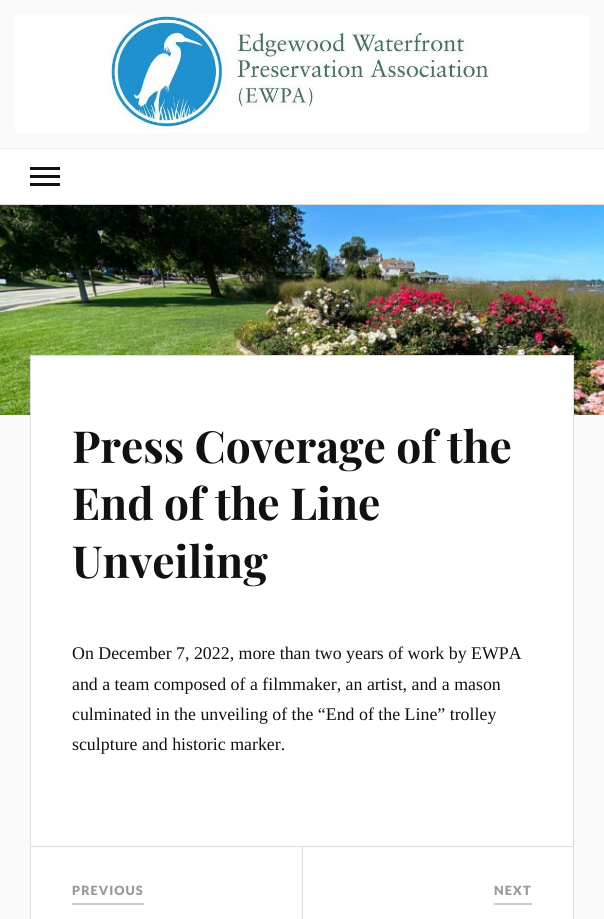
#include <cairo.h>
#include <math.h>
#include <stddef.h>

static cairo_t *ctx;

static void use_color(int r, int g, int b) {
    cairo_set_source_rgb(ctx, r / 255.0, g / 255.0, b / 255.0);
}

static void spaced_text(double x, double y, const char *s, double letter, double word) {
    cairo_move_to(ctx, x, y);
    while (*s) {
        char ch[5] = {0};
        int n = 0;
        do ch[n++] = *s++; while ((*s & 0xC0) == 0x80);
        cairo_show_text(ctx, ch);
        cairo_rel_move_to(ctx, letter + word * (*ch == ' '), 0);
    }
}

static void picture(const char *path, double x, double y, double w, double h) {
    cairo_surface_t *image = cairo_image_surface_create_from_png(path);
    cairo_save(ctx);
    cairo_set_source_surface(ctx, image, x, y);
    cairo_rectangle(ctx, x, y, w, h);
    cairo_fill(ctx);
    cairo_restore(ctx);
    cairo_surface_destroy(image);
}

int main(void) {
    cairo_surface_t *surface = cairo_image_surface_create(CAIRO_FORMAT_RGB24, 604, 919);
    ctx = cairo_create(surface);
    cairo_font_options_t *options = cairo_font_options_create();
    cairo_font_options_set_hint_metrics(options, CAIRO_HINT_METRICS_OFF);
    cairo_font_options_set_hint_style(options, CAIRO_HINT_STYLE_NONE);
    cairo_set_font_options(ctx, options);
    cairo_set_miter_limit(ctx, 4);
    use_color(250, 250, 250);
    cairo_paint(ctx);
    use_color(255, 255, 255);
    cairo_rectangle(ctx, 15, 15, 574, 118);
    cairo_fill(ctx);
    picture("img1.png", 108, 15, 383, 114);
    cairo_rectangle(ctx, 0, 149, 604, 55);
    cairo_fill(ctx);
    use_color(238, 238, 238);
    cairo_rectangle(ctx, 0, 148, 604, 1);
    cairo_fill(ctx);
    use_color(17, 17, 17);
    cairo_rectangle(ctx, 30, 167, 30, 3);
    cairo_fill(ctx);
    cairo_rectangle(ctx, 30, 175, 30, 3);
    cairo_fill(ctx);
    cairo_rectangle(ctx, 30, 183, 30, 3);
    cairo_fill(ctx);
    use_color(221, 221, 221);
    cairo_rectangle(ctx, 0, 204, 604, 1);
    cairo_fill(ctx);
    picture("img2.png", 0, 205, 604, 210);
    use_color(255, 255, 255);
    cairo_rectangle(ctx, 30.5, 355.5, 543, 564);
    cairo_fill_preserve(ctx);
    use_color(221, 221, 221);
    cairo_set_line_width(ctx, 1);
    cairo_stroke(ctx);
    cairo_select_font_face(ctx, "Playfair Display", CAIRO_FONT_SLANT_NORMAL, CAIRO_FONT_WEIGHT_BOLD);
    cairo_set_font_size(ctx, 44.25);
    use_color(17, 17, 17);
    cairo_move_to(ctx, 72, 463);
    cairo_show_text(ctx, "Press Coverage of the");
    cairo_move_to(ctx, 72, 520);
    cairo_show_text(ctx, "End of the Line");
    cairo_move_to(ctx, 72, 578);
    cairo_show_text(ctx, "Unveiling");
    cairo_select_font_face(ctx, "Liberation Serif", CAIRO_FONT_SLANT_NORMAL, CAIRO_FONT_WEIGHT_NORMAL);
    cairo_set_font_size(ctx, 17.85);
    cairo_move_to(ctx, 72, 659);
    cairo_show_text(ctx, "On December 7, 2022, more than two years of work by EWPA");
    cairo_move_to(ctx, 72, 690);
    cairo_show_text(ctx, "and a team composed of a filmmaker, an artist, and a mason");
    cairo_move_to(ctx, 72, 720);
    cairo_show_text(ctx, "culminated in the unveiling of the “End of the Line” trolley");
    cairo_move_to(ctx, 72, 750);
    cairo_show_text(ctx, "sculpture and historic marker.");
    use_color(221, 221, 221);
    cairo_rectangle(ctx, 31, 846, 542, 1);
    cairo_fill(ctx);
    cairo_rectangle(ctx, 302, 847, 1, 72);
    cairo_fill(ctx);
    use_color(204, 204, 204);
    cairo_rectangle(ctx, 72, 903, 72, 2);
    cairo_fill(ctx);
    cairo_select_font_face(ctx, "Lato Black", CAIRO_FONT_SLANT_NORMAL, CAIRO_FONT_WEIGHT_NORMAL);
    cairo_set_font_size(ctx, 12.75);
    use_color(153, 153, 153);
    spaced_text(72, 895, "PREVIOUS", 1, 0);
    use_color(204, 204, 204);
    cairo_rectangle(ctx, 494, 903, 38, 2);
    cairo_fill(ctx);
    use_color(153, 153, 153);
    spaced_text(494, 895, "NEXT", 1, 0);
    cairo_surface_write_to_png(surface, "result.png");
    cairo_font_options_destroy(options);
    cairo_destroy(ctx);
    cairo_surface_destroy(surface);
    return 0;
}
